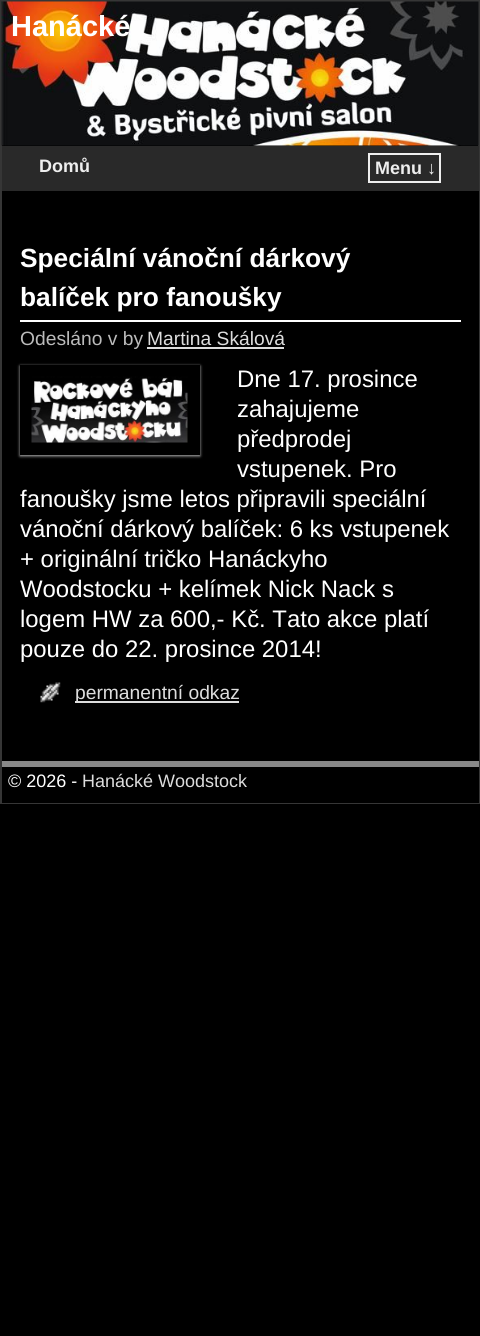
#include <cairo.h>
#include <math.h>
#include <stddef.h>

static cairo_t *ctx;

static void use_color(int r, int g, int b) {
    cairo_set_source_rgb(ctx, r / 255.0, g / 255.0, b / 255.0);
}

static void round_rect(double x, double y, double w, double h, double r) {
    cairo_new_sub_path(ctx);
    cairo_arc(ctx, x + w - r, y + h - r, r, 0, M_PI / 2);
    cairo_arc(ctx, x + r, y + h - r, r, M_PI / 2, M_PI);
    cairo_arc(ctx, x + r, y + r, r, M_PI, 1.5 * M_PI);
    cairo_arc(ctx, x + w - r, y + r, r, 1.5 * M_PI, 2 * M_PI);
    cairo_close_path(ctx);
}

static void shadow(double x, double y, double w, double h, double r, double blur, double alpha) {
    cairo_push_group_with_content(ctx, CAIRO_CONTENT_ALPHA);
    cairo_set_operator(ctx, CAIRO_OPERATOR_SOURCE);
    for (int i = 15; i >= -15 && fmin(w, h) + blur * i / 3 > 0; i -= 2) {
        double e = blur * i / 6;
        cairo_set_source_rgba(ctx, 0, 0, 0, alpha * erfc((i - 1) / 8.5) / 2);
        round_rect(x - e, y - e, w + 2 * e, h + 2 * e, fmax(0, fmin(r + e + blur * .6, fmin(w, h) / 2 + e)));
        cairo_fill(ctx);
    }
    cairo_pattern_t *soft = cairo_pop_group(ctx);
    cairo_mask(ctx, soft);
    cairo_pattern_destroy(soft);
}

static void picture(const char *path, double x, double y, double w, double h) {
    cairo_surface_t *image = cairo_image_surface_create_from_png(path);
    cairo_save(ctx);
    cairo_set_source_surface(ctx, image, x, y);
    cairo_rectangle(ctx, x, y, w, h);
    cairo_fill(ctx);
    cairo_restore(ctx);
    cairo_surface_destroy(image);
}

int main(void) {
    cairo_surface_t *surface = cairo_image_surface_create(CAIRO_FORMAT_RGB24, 480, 1336);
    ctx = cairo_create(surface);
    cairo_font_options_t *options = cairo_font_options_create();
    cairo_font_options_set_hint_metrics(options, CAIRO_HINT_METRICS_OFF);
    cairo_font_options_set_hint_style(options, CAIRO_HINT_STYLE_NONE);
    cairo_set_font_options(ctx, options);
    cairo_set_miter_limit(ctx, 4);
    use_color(0, 0, 0);
    cairo_paint(ctx);
    cairo_rectangle(ctx, 1, 1, 478, 802);
    use_color(54, 54, 54);
    cairo_stroke(ctx);
    picture("img1.png", 1, 1, 478, 145);
    cairo_select_font_face(ctx, "Liberation Sans", CAIRO_FONT_SLANT_NORMAL, CAIRO_FONT_WEIGHT_BOLD);
    cairo_set_font_size(ctx, 29);
    use_color(255, 255, 255);
    cairo_move_to(ctx, 11, 36);
    cairo_show_text(ctx, "Hanácké");
    use_color(41, 41, 41);
    cairo_rectangle(ctx, 2, 146, 477, 45);
    cairo_fill(ctx);
    cairo_set_font_size(ctx, 18);
    use_color(238, 238, 238);
    cairo_move_to(ctx, 39, 172);
    cairo_show_text(ctx, "Domů");
    cairo_rectangle(ctx, 369, 154, 71, 28);
    cairo_stroke(ctx);
    cairo_move_to(ctx, 375, 174);
    cairo_show_text(ctx, "Menu ↓");
    use_color(0, 0, 0);
    cairo_rectangle(ctx, 478, 191, 1, 570);
    cairo_fill(ctx);
    use_color(255, 255, 255);
    cairo_rectangle(ctx, 20, 320, 441, 2);
    cairo_fill(ctx);
    cairo_set_font_size(ctx, 26.3);
    cairo_move_to(ctx, 20, 267);
    cairo_show_text(ctx, "Speciální vánoční dárkový");
    cairo_move_to(ctx, 20, 306);
    cairo_show_text(ctx, "balíček pro fanoušky");
    cairo_select_font_face(ctx, "Liberation Sans", CAIRO_FONT_SLANT_NORMAL, CAIRO_FONT_WEIGHT_NORMAL);
    cairo_set_font_size(ctx, 19.25);
    use_color(187, 187, 187);
    cairo_move_to(ctx, 20, 345);
    cairo_show_text(ctx, "Odesláno v by");
    use_color(221, 221, 221);
    cairo_move_to(ctx, 147, 345);
    cairo_show_text(ctx, "Martina Skálová");
    cairo_rectangle(ctx, 147, 347, 137, 2);
    cairo_fill(ctx);
    cairo_save(ctx);
    cairo_set_fill_rule(ctx, CAIRO_FILL_RULE_EVEN_ODD);
    cairo_new_path(ctx);
    cairo_move_to(ctx, 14, 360);
    cairo_line_to(ctx, 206, 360);
    cairo_line_to(ctx, 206, 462);
    cairo_line_to(ctx, 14, 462);
    cairo_close_path(ctx);
    cairo_move_to(ctx, 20, 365);
    cairo_line_to(ctx, 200, 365);
    cairo_line_to(ctx, 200, 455);
    cairo_line_to(ctx, 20, 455);
    cairo_close_path(ctx);
    cairo_clip(ctx);
    use_color(187, 187, 187);
    shadow(20, 366, 180, 90, 0, 1.5, 1);
    cairo_restore(ctx);
    picture("img2.png", 31, 376, 157, 67);
    cairo_set_font_size(ctx, 23.9);
    use_color(255, 255, 255);
    cairo_move_to(ctx, 237, 387);
    cairo_show_text(ctx, "Dne 17. prosince");
    cairo_move_to(ctx, 237, 417);
    cairo_show_text(ctx, "zahajujeme");
    cairo_move_to(ctx, 237, 447);
    cairo_show_text(ctx, "předprodej");
    cairo_move_to(ctx, 237, 477);
    cairo_show_text(ctx, "vstupenek. Pro");
    cairo_move_to(ctx, 20, 507);
    cairo_show_text(ctx, "fanoušky jsme letos připravili speciální");
    cairo_move_to(ctx, 20, 537);
    cairo_show_text(ctx, "vánoční dárkový balíček: 6 ks vstupenek");
    cairo_move_to(ctx, 20, 567);
    cairo_show_text(ctx, "+ originální tričko Hanáckyho");
    cairo_move_to(ctx, 20, 597);
    cairo_show_text(ctx, "Woodstocku + kelímek Nick Nack s");
    cairo_move_to(ctx, 20, 627);
    cairo_show_text(ctx, "logem HW za 600,- Kč. Tato akce platí");
    cairo_move_to(ctx, 20, 657);
    cairo_show_text(ctx, "pouze do 22. prosince 2014!");
    picture("img3.png", 40, 682, 21, 21);
    use_color(221, 221, 221);
    cairo_rectangle(ctx, 75, 701, 164, 2);
    cairo_fill(ctx);
    cairo_set_font_size(ctx, 19.25);
    cairo_move_to(ctx, 75, 699);
    cairo_show_text(ctx, "permanentní odkaz");
    use_color(0, 0, 0);
    cairo_rectangle(ctx, 2, 767, 477, 36);
    cairo_fill(ctx);
    use_color(136, 136, 136);
    cairo_rectangle(ctx, 2, 761, 477, 6);
    cairo_fill(ctx);
    cairo_set_font_size(ctx, 18);
    use_color(255, 255, 255);
    cairo_move_to(ctx, 8, 787);
    cairo_show_text(ctx, "© 2026 -");
    use_color(221, 221, 221);
    cairo_move_to(ctx, 82, 787);
    cairo_show_text(ctx, "Hanácké Woodstock");
    cairo_surface_write_to_png(surface, "result.png");
    cairo_font_options_destroy(options);
    cairo_destroy(ctx);
    cairo_surface_destroy(surface);
    return 0;
}
